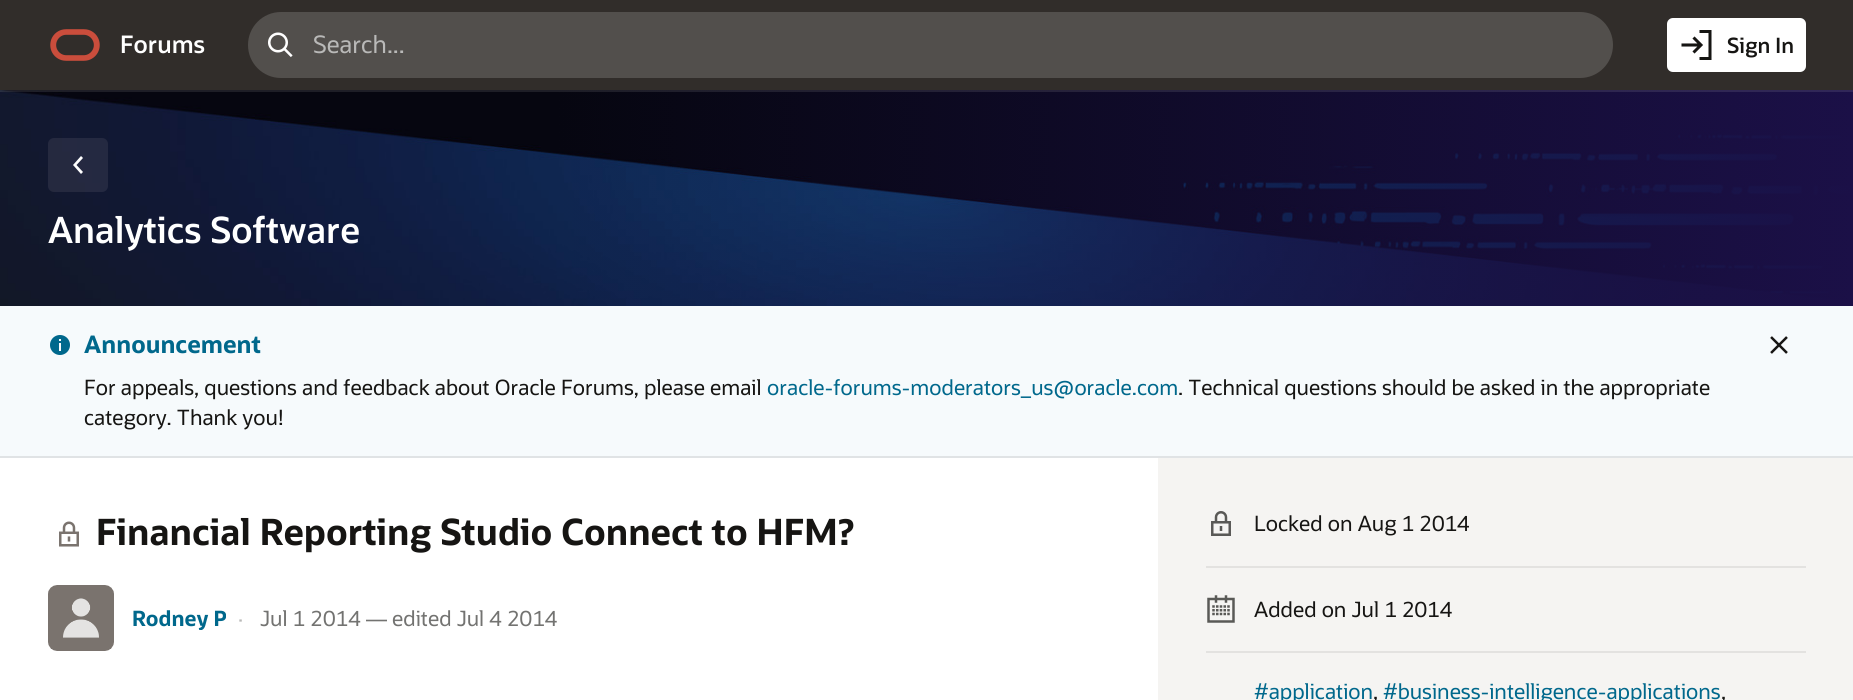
#include <cairo.h>
#include <math.h>
#include <stddef.h>

static cairo_t *ctx;

static void use_color(int r, int g, int b) {
    cairo_set_source_rgb(ctx, r / 255.0, g / 255.0, b / 255.0);
}

static void round_rect(double x, double y, double w, double h, double r) {
    cairo_new_sub_path(ctx);
    cairo_arc(ctx, x + w - r, y + h - r, r, 0, M_PI / 2);
    cairo_arc(ctx, x + r, y + h - r, r, M_PI / 2, M_PI);
    cairo_arc(ctx, x + r, y + r, r, M_PI, 1.5 * M_PI);
    cairo_arc(ctx, x + w - r, y + r, r, 1.5 * M_PI, 2 * M_PI);
    cairo_close_path(ctx);
}

static void picture(const char *path, double x, double y, double w, double h) {
    cairo_surface_t *image = cairo_image_surface_create_from_png(path);
    cairo_save(ctx);
    cairo_set_source_surface(ctx, image, x, y);
    cairo_rectangle(ctx, x, y, w, h);
    cairo_fill(ctx);
    cairo_restore(ctx);
    cairo_surface_destroy(image);
}

int main(void) {
    cairo_surface_t *surface = cairo_image_surface_create(CAIRO_FORMAT_RGB24, 1853, 700);
    ctx = cairo_create(surface);
    cairo_font_options_t *options = cairo_font_options_create();
    cairo_font_options_set_hint_metrics(options, CAIRO_HINT_METRICS_OFF);
    cairo_font_options_set_hint_style(options, CAIRO_HINT_STYLE_NONE);
    cairo_set_font_options(ctx, options);
    cairo_set_miter_limit(ctx, 4);
    use_color(255, 255, 255);
    cairo_paint(ctx);
    picture("img4.png", 0, 90, 1853, 216);
    cairo_rectangle(ctx, 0, 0, 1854, 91);
    cairo_set_source_rgba(ctx, 1, 1, 1, 0.1);
    cairo_stroke(ctx);
    use_color(49, 45, 42);
    cairo_rectangle(ctx, 0, 0, 1853, 90);
    cairo_fill(ctx);
    picture("img1.png", 50, 29, 50, 32);
    cairo_select_font_face(ctx, "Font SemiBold", CAIRO_FONT_SLANT_NORMAL, CAIRO_FONT_WEIGHT_NORMAL);
    cairo_set_font_size(ctx, 24);
    use_color(255, 255, 255);
    cairo_move_to(ctx, 120, 53);
    cairo_show_text(ctx, "Forums");
    use_color(82, 79, 76);
    round_rect(248, 12, 1365, 66, 33);
    cairo_fill(ctx);
    picture("img2.png", 268, 32, 25, 25);
    cairo_select_font_face(ctx, "Font", CAIRO_FONT_SLANT_NORMAL, CAIRO_FONT_WEIGHT_NORMAL);
    use_color(185, 185, 184);
    cairo_move_to(ctx, 313, 53);
    cairo_show_text(ctx, "Search...");
    use_color(255, 255, 255);
    round_rect(1667, 18, 139, 54, 6);
    cairo_fill(ctx);
    picture("img3.png", 1681, 30, 31, 30);
    cairo_select_font_face(ctx, "Font SemiBold", CAIRO_FONT_SLANT_NORMAL, CAIRO_FONT_WEIGHT_NORMAL);
    cairo_set_font_size(ctx, 21);
    use_color(22, 21, 19);
    cairo_move_to(ctx, 1727, 53);
    cairo_show_text(ctx, "Sign In");
    cairo_set_source_rgba(ctx, 0.984, 0.976, 0.973, 0.08);
    round_rect(48, 138, 60, 54, 6);
    cairo_fill(ctx);
    use_color(255, 255, 255);
    cairo_new_path(ctx);
    cairo_move_to(ctx, 83, 172);
    cairo_line_to(ctx, 81, 174);
    cairo_line_to(ctx, 73, 165);
    cairo_line_to(ctx, 81, 156);
    cairo_line_to(ctx, 83, 158);
    cairo_line_to(ctx, 76.5, 165);
    cairo_close_path(ctx);
    cairo_fill(ctx);
    cairo_set_font_size(ctx, 36);
    cairo_move_to(ctx, 48, 243);
    cairo_show_text(ctx, "Analytics Software");
    use_color(246, 250, 252);
    cairo_rectangle(ctx, 0, 306, 1853, 150);
    cairo_fill(ctx);
    use_color(224, 227, 229);
    cairo_rectangle(ctx, 0, 456, 1853, 2);
    cairo_fill(ctx);
    picture("img5.png", 50, 335, 20, 20);
    cairo_select_font_face(ctx, "Font", CAIRO_FONT_SLANT_NORMAL, CAIRO_FONT_WEIGHT_BOLD);
    cairo_set_font_size(ctx, 24);
    use_color(0, 104, 140);
    cairo_move_to(ctx, 84, 353);
    cairo_show_text(ctx, "Announcement");
    cairo_select_font_face(ctx, "Font", CAIRO_FONT_SLANT_NORMAL, CAIRO_FONT_WEIGHT_NORMAL);
    cairo_set_font_size(ctx, 21);
    use_color(22, 21, 19);
    cairo_move_to(ctx, 84, 395);
    cairo_show_text(ctx, "For appeals, questions and feedback about Oracle Forums, please email");
    use_color(0, 104, 140);
    cairo_move_to(ctx, 767, 395);
    cairo_show_text(ctx, "oracle-forums-moderators_us@oracle.com");
    use_color(22, 21, 19);
    cairo_move_to(ctx, 1178, 395);
    cairo_show_text(ctx, ". Technical questions should be asked in the appropriate");
    cairo_move_to(ctx, 84, 425);
    cairo_show_text(ctx, "category. Thank you!");
    picture("img6.png", 1770, 336, 18, 18);
    picture("img7.png", 59, 521, 20, 26);
    cairo_select_font_face(ctx, "Font", CAIRO_FONT_SLANT_NORMAL, CAIRO_FONT_WEIGHT_BOLD);
    cairo_set_font_size(ctx, 36);
    cairo_move_to(ctx, 96, 545);
    cairo_show_text(ctx, "Financial Reporting Studio Connect to HFM?");
    picture("img8.png", 48, 585, 66, 66);
    cairo_save(ctx);
    cairo_rectangle(ctx, 132, 606, 95, 24);
    cairo_clip(ctx);
    cairo_set_font_size(ctx, 21);
    use_color(0, 104, 140);
    cairo_move_to(ctx, 132, 626);
    cairo_show_text(ctx, "Rodney P");
    cairo_restore(ctx);
    cairo_select_font_face(ctx, "Font", CAIRO_FONT_SLANT_NORMAL, CAIRO_FONT_WEIGHT_NORMAL);
    cairo_set_font_size(ctx, 21);
    use_color(185, 185, 184);
    cairo_move_to(ctx, 238, 626);
    cairo_show_text(ctx, "·");
    use_color(115, 115, 113);
    cairo_move_to(ctx, 260, 626);
    cairo_show_text(ctx, "Jul 1 2014 — edited Jul 4 2014");
    use_color(245, 244, 242);
    cairo_rectangle(ctx, 1158, 458, 695, 242);
    cairo_fill(ctx);
    use_color(227, 226, 224);
    cairo_rectangle(ctx, 1206, 566, 600, 2);
    cairo_fill(ctx);
    picture("img9.png", 1211, 511, 20, 25);
    use_color(22, 21, 19);
    cairo_move_to(ctx, 1254, 531);
    cairo_show_text(ctx, "Locked on Aug 1 2014");
    use_color(227, 226, 224);
    cairo_rectangle(ctx, 1206, 651, 600, 2);
    cairo_fill(ctx);
    picture("img10.png", 1207, 595, 28, 28);
    use_color(22, 21, 19);
    cairo_move_to(ctx, 1254, 617);
    cairo_show_text(ctx, "Added on Jul 1 2014");
    use_color(0, 104, 140);
    cairo_move_to(ctx, 1254, 699);
    cairo_show_text(ctx, "#application");
    use_color(22, 21, 19);
    cairo_move_to(ctx, 1373, 699);
    cairo_show_text(ctx, ",");
    use_color(0, 104, 140);
    cairo_move_to(ctx, 1383, 699);
    cairo_show_text(ctx, "#business-intelligence-applications");
    use_color(22, 21, 19);
    cairo_move_to(ctx, 1721, 699);
    cairo_show_text(ctx, ",");
    cairo_surface_write_to_png(surface, "result.png");
    cairo_font_options_destroy(options);
    cairo_destroy(ctx);
    cairo_surface_destroy(surface);
    return 0;
}
